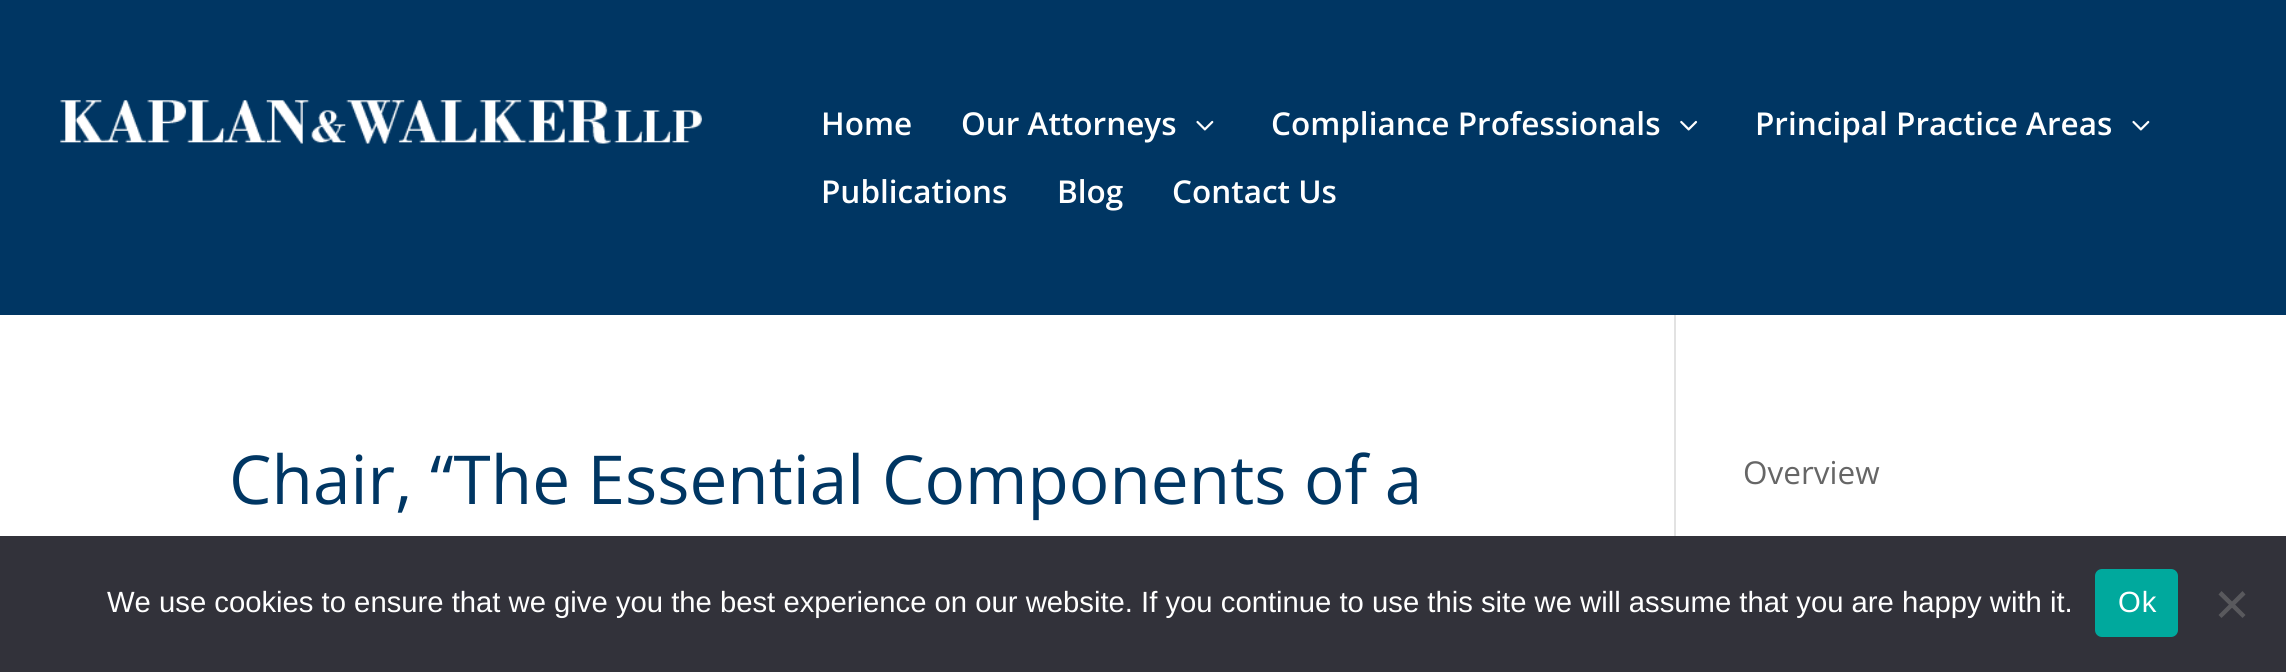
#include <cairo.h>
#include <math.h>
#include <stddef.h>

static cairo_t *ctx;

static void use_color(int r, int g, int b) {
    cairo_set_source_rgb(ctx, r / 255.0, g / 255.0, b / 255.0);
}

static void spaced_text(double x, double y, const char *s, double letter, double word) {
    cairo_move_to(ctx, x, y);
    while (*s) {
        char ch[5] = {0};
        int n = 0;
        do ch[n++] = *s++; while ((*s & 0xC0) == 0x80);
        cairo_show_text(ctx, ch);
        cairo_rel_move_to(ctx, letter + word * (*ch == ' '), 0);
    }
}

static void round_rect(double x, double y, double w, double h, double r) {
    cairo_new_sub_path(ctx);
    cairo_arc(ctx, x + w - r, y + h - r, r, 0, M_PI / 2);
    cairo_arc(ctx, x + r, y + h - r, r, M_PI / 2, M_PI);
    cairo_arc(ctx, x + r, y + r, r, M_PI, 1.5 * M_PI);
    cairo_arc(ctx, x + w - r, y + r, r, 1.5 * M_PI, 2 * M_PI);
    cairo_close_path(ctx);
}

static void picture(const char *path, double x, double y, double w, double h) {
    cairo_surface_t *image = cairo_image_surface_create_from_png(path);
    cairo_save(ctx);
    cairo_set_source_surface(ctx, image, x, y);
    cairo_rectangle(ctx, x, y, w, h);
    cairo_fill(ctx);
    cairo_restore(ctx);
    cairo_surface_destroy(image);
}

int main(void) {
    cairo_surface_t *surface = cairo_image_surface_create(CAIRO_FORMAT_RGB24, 2286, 672);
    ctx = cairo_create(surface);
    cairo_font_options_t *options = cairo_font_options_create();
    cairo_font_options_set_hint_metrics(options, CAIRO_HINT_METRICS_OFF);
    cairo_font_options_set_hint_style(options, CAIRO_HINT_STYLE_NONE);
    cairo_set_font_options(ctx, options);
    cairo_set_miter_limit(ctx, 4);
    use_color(255, 255, 255);
    cairo_paint(ctx);
    use_color(0, 54, 99);
    cairo_rectangle(ctx, 0, 0, 2286, 315);
    cairo_fill(ctx);
    picture("img1.png", 60, 100, 642, 44);
    cairo_select_font_face(ctx, "Open Sans SemiBold", CAIRO_FONT_SLANT_NORMAL, CAIRO_FONT_WEIGHT_NORMAL);
    cairo_set_font_size(ctx, 31.5);
    use_color(255, 255, 255);
    cairo_move_to(ctx, 821, 135);
    cairo_show_text(ctx, "Home");
    cairo_move_to(ctx, 961, 135);
    cairo_show_text(ctx, "Our Attorneys");
    picture("img2.png", 1196, 120, 18, 11);
    cairo_move_to(ctx, 1271, 135);
    cairo_show_text(ctx, "Compliance Professionals");
    picture("img3.png", 1680, 120, 18, 11);
    cairo_move_to(ctx, 1755, 135);
    cairo_show_text(ctx, "Principal Practice Areas");
    picture("img2.png", 2132, 120, 18, 11);
    cairo_move_to(ctx, 821, 203);
    cairo_show_text(ctx, "Publications");
    cairo_move_to(ctx, 1057, 203);
    cairo_show_text(ctx, "Blog");
    cairo_move_to(ctx, 1172, 203);
    cairo_show_text(ctx, "Contact Us");
    use_color(226, 226, 226);
    cairo_rectangle(ctx, 1674, 315, 2, 221);
    cairo_fill(ctx);
    cairo_select_font_face(ctx, "Open Sans", CAIRO_FONT_SLANT_NORMAL, CAIRO_FONT_WEIGHT_NORMAL);
    cairo_set_font_size(ctx, 67.5);
    use_color(0, 54, 99);
    cairo_move_to(ctx, 229, 504);
    cairo_show_text(ctx, "Chair, “The Essential Components of a");
    cairo_set_font_size(ctx, 31.5);
    use_color(102, 102, 102);
    cairo_move_to(ctx, 1743, 484);
    cairo_show_text(ctx, "Overview");
    use_color(50, 50, 58);
    cairo_rectangle(ctx, 0, 536, 2286, 136);
    cairo_fill(ctx);
    cairo_select_font_face(ctx, "Liberation Sans", CAIRO_FONT_SLANT_NORMAL, CAIRO_FONT_WEIGHT_NORMAL);
    cairo_set_font_size(ctx, 29.25);
    use_color(255, 255, 255);
    cairo_move_to(ctx, 107, 612);
    cairo_show_text(ctx, "We use cookies to ensure that we give you the best experience on our website. If you continue to use this site we will assume that you are happy with it.");
    use_color(0, 169, 157);
    round_rect(2095, 569, 83, 68, 7);
    cairo_fill(ctx);
    use_color(255, 255, 255);
    spaced_text(2118, 612, "Ok", 1, 0);
    use_color(89, 89, 93);
    cairo_new_path(ctx);
    cairo_move_to(ctx, 2242.5, 591);
    cairo_line_to(ctx, 2245.5, 594.5);
    cairo_line_to(ctx, 2221.5, 618);
    cairo_line_to(ctx, 2218.5, 615);
    cairo_close_path(ctx);
    cairo_fill(ctx);
    cairo_new_path(ctx);
    cairo_move_to(ctx, 2218.5, 594.5);
    cairo_line_to(ctx, 2221.5, 591);
    cairo_line_to(ctx, 2245.5, 615);
    cairo_line_to(ctx, 2242.5, 618);
    cairo_close_path(ctx);
    cairo_fill(ctx);
    cairo_surface_write_to_png(surface, "result.png");
    cairo_font_options_destroy(options);
    cairo_destroy(ctx);
    cairo_surface_destroy(surface);
    return 0;
}
